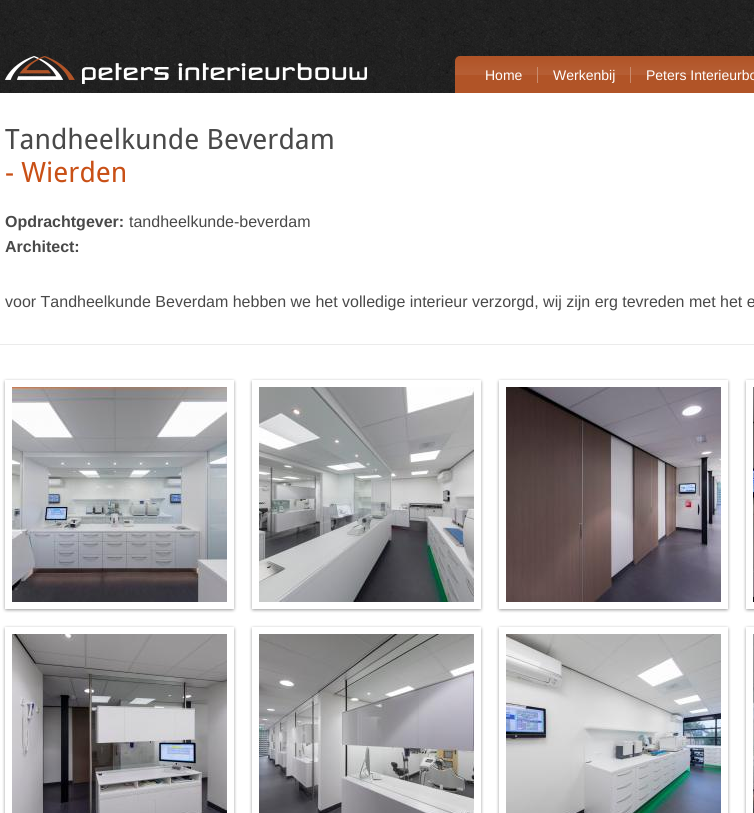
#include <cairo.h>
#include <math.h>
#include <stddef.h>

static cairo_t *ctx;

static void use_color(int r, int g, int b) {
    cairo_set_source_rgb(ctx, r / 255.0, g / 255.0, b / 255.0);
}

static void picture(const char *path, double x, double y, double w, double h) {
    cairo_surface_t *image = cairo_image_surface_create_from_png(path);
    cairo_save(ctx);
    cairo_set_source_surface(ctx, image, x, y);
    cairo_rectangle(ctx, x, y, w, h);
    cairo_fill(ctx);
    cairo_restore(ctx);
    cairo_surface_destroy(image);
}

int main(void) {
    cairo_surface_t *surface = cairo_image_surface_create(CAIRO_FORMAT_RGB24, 754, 813);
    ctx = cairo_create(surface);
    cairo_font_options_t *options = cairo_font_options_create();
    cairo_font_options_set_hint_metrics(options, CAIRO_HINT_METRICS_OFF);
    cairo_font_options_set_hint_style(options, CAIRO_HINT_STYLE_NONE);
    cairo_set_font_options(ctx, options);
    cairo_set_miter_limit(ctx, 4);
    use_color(255, 255, 255);
    cairo_paint(ctx);
    picture("img1.png", 0, 0, 754, 93);
    picture("img2.png", 5, 56, 362, 28);
    picture("img3.png", 455, 56, 299, 37);
    cairo_select_font_face(ctx, "Liberation Sans", CAIRO_FONT_SLANT_NORMAL, CAIRO_FONT_WEIGHT_NORMAL);
    cairo_set_font_size(ctx, 14);
    use_color(255, 255, 255);
    cairo_move_to(ctx, 485, 80);
    cairo_show_text(ctx, "Home");
    use_color(201, 140, 110);
    cairo_rectangle(ctx, 537, 67, 1, 16);
    cairo_fill(ctx);
    use_color(255, 255, 255);
    cairo_move_to(ctx, 553, 80);
    cairo_show_text(ctx, "Werkenbij");
    use_color(201, 140, 110);
    cairo_rectangle(ctx, 630, 67, 1, 16);
    cairo_fill(ctx);
    use_color(255, 255, 255);
    cairo_move_to(ctx, 646, 80);
    cairo_show_text(ctx, "Peters Interieurbo");
    cairo_select_font_face(ctx, "Droid Sans", CAIRO_FONT_SLANT_NORMAL, CAIRO_FONT_WEIGHT_NORMAL);
    cairo_set_font_size(ctx, 28);
    use_color(73, 73, 73);
    cairo_move_to(ctx, 5, 149);
    cairo_show_text(ctx, "Tandheelkunde Beverdam");
    use_color(201, 80, 22);
    cairo_move_to(ctx, 5, 182);
    cairo_show_text(ctx, "- Wierden");
    cairo_select_font_face(ctx, "Liberation Sans", CAIRO_FONT_SLANT_NORMAL, CAIRO_FONT_WEIGHT_BOLD);
    cairo_set_font_size(ctx, 16);
    use_color(73, 73, 73);
    cairo_move_to(ctx, 5, 227);
    cairo_show_text(ctx, "Opdrachtgever:");
    cairo_select_font_face(ctx, "Liberation Sans", CAIRO_FONT_SLANT_NORMAL, CAIRO_FONT_WEIGHT_NORMAL);
    cairo_move_to(ctx, 129, 227);
    cairo_show_text(ctx, "tandheelkunde-beverdam");
    cairo_select_font_face(ctx, "Liberation Sans", CAIRO_FONT_SLANT_NORMAL, CAIRO_FONT_WEIGHT_BOLD);
    cairo_move_to(ctx, 5, 252);
    cairo_show_text(ctx, "Architect:");
    cairo_select_font_face(ctx, "Liberation Sans", CAIRO_FONT_SLANT_NORMAL, CAIRO_FONT_WEIGHT_NORMAL);
    cairo_move_to(ctx, 5, 307);
    cairo_show_text(ctx, "voor Tandheelkunde Beverdam hebben we het volledige interieur verzorgd, wij zijn erg tevreden met het e");
    use_color(235, 235, 235);
    cairo_rectangle(ctx, 0, 344, 754, 1);
    cairo_fill(ctx);
    picture("img4.png", 2, 378, 235, 235);
    picture("img5.png", 12, 387, 215, 215);
    picture("img4.png", 249, 378, 235, 235);
    picture("img6.png", 259, 387, 215, 215);
    picture("img4.png", 496, 378, 235, 235);
    picture("img7.png", 506, 387, 215, 215);
    picture("img8.png", 743, 378, 11, 235);
    picture("img9.png", 753, 387, 1, 215);
    picture("img10.png", 2, 625, 235, 188);
    picture("img11.png", 12, 634, 215, 179);
    picture("img10.png", 249, 625, 235, 188);
    picture("img12.png", 259, 634, 215, 179);
    picture("img10.png", 496, 625, 235, 188);
    picture("img13.png", 506, 634, 215, 179);
    picture("img14.png", 743, 625, 11, 188);
    picture("img15.png", 753, 634, 1, 179);
    cairo_surface_write_to_png(surface, "result.png");
    cairo_font_options_destroy(options);
    cairo_destroy(ctx);
    cairo_surface_destroy(surface);
    return 0;
}
